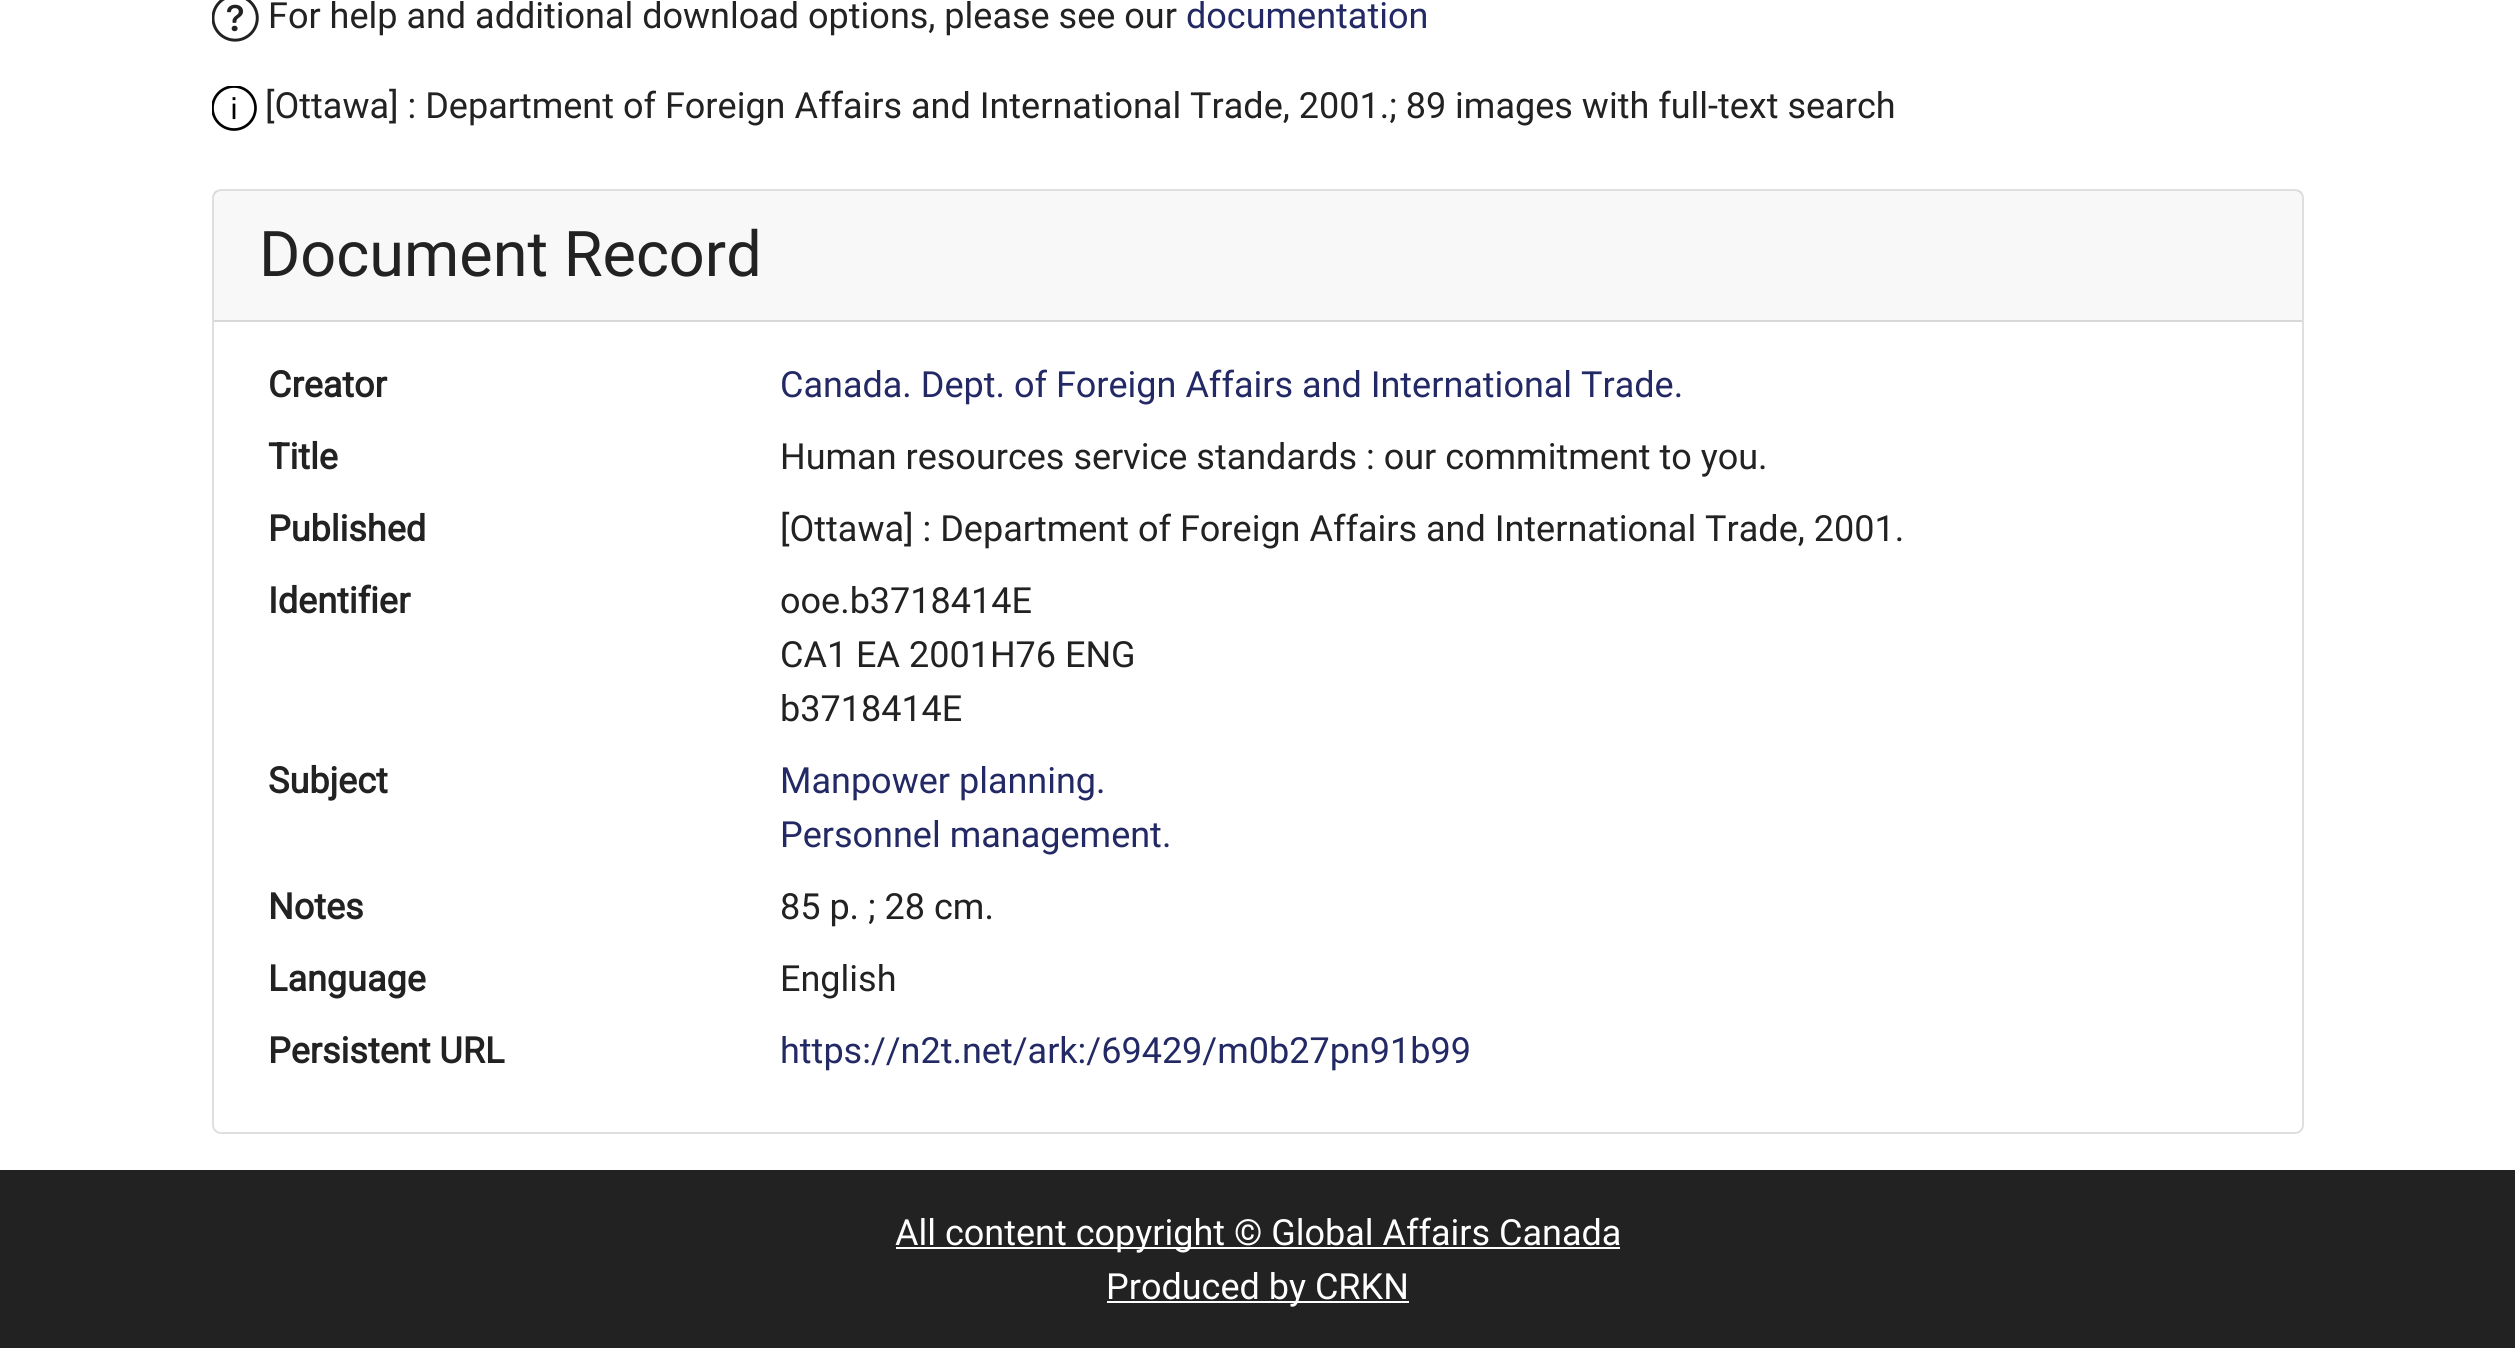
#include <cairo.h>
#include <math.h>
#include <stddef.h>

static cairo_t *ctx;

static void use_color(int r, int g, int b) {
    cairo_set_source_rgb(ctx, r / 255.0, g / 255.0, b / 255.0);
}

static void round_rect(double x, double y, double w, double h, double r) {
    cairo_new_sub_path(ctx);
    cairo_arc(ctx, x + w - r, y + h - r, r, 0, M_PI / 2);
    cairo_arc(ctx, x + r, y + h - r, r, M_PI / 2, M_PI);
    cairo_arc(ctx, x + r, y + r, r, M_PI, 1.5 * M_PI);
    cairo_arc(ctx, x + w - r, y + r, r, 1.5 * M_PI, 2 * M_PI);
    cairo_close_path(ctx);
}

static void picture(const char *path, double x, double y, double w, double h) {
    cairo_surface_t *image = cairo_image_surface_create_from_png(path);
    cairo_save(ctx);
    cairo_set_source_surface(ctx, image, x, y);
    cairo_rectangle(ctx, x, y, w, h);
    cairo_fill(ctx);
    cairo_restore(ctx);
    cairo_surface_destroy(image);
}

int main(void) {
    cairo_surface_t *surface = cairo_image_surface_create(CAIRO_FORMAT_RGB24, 2515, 1348);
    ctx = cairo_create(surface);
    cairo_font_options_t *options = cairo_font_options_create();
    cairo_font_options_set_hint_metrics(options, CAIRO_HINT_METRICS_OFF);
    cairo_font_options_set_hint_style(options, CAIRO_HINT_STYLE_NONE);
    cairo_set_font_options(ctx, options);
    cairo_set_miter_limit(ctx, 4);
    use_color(255, 255, 255);
    cairo_paint(ctx);
    picture("img1.png", 212, 0, 47, 42);
    cairo_select_font_face(ctx, "Roboto", CAIRO_FONT_SLANT_NORMAL, CAIRO_FONT_WEIGHT_NORMAL);
    cairo_set_font_size(ctx, 36);
    use_color(34, 34, 34);
    cairo_move_to(ctx, 268, 28);
    cairo_show_text(ctx, "For help and additional download options, please see our");
    use_color(35, 41, 101);
    cairo_move_to(ctx, 1186, 28);
    cairo_show_text(ctx, "documentation");
    picture("img2.png", 212, 86, 45, 45);
    use_color(34, 34, 34);
    cairo_move_to(ctx, 265, 118);
    cairo_show_text(ctx, "[Ottawa] : Department of Foreign Affairs and International Trade, 2001.; 89 images with full-text search");
    round_rect(213, 190, 2090, 943, 8);
    use_color(223, 223, 223);
    cairo_stroke(ctx);
    cairo_set_source_rgba(ctx, 0, 0, 0, 0.03);
    cairo_rectangle(ctx, 214, 191, 2088, 129);
    cairo_fill(ctx);
    use_color(216, 216, 216);
    cairo_rectangle(ctx, 214, 320, 2088, 2);
    cairo_fill(ctx);
    cairo_set_font_size(ctx, 63);
    use_color(34, 34, 34);
    cairo_move_to(ctx, 259, 276);
    cairo_show_text(ctx, "Document Record");
    cairo_select_font_face(ctx, "Roboto", CAIRO_FONT_SLANT_NORMAL, CAIRO_FONT_WEIGHT_BOLD);
    cairo_set_font_size(ctx, 36);
    cairo_move_to(ctx, 268, 397);
    cairo_show_text(ctx, "Creator");
    cairo_select_font_face(ctx, "Roboto", CAIRO_FONT_SLANT_NORMAL, CAIRO_FONT_WEIGHT_NORMAL);
    use_color(35, 41, 101);
    cairo_move_to(ctx, 780, 397);
    cairo_show_text(ctx, "Canada. Dept. of Foreign Affairs and International Trade.");
    cairo_select_font_face(ctx, "Roboto", CAIRO_FONT_SLANT_NORMAL, CAIRO_FONT_WEIGHT_BOLD);
    use_color(34, 34, 34);
    cairo_move_to(ctx, 268, 469);
    cairo_show_text(ctx, "Title");
    cairo_select_font_face(ctx, "Roboto", CAIRO_FONT_SLANT_NORMAL, CAIRO_FONT_WEIGHT_NORMAL);
    cairo_move_to(ctx, 780, 469);
    cairo_show_text(ctx, "Human resources service standards : our commitment to you.");
    cairo_select_font_face(ctx, "Roboto", CAIRO_FONT_SLANT_NORMAL, CAIRO_FONT_WEIGHT_BOLD);
    cairo_move_to(ctx, 268, 541);
    cairo_show_text(ctx, "Published");
    cairo_select_font_face(ctx, "Roboto", CAIRO_FONT_SLANT_NORMAL, CAIRO_FONT_WEIGHT_NORMAL);
    cairo_move_to(ctx, 780, 541);
    cairo_show_text(ctx, "[Ottawa] : Department of Foreign Affairs and International Trade, 2001.");
    cairo_select_font_face(ctx, "Roboto", CAIRO_FONT_SLANT_NORMAL, CAIRO_FONT_WEIGHT_BOLD);
    cairo_move_to(ctx, 268, 613);
    cairo_show_text(ctx, "Identifier");
    cairo_select_font_face(ctx, "Roboto", CAIRO_FONT_SLANT_NORMAL, CAIRO_FONT_WEIGHT_NORMAL);
    cairo_move_to(ctx, 780, 613);
    cairo_show_text(ctx, "ooe.b3718414E");
    cairo_move_to(ctx, 780, 667);
    cairo_show_text(ctx, "CA1 EA 2001H76 ENG");
    cairo_move_to(ctx, 780, 721);
    cairo_show_text(ctx, "b3718414E");
    cairo_select_font_face(ctx, "Roboto", CAIRO_FONT_SLANT_NORMAL, CAIRO_FONT_WEIGHT_BOLD);
    cairo_move_to(ctx, 268, 793);
    cairo_show_text(ctx, "Subject");
    cairo_select_font_face(ctx, "Roboto", CAIRO_FONT_SLANT_NORMAL, CAIRO_FONT_WEIGHT_NORMAL);
    use_color(35, 41, 101);
    cairo_move_to(ctx, 780, 793);
    cairo_show_text(ctx, "Manpower planning.");
    cairo_move_to(ctx, 780, 847);
    cairo_show_text(ctx, "Personnel management.");
    cairo_select_font_face(ctx, "Roboto", CAIRO_FONT_SLANT_NORMAL, CAIRO_FONT_WEIGHT_BOLD);
    use_color(34, 34, 34);
    cairo_move_to(ctx, 268, 919);
    cairo_show_text(ctx, "Notes");
    cairo_select_font_face(ctx, "Roboto", CAIRO_FONT_SLANT_NORMAL, CAIRO_FONT_WEIGHT_NORMAL);
    cairo_move_to(ctx, 780, 919);
    cairo_show_text(ctx, "85 p. ; 28 cm.");
    cairo_select_font_face(ctx, "Roboto", CAIRO_FONT_SLANT_NORMAL, CAIRO_FONT_WEIGHT_BOLD);
    cairo_move_to(ctx, 268, 991);
    cairo_show_text(ctx, "Language");
    cairo_select_font_face(ctx, "Roboto", CAIRO_FONT_SLANT_NORMAL, CAIRO_FONT_WEIGHT_NORMAL);
    cairo_move_to(ctx, 780, 991);
    cairo_show_text(ctx, "English");
    cairo_select_font_face(ctx, "Roboto", CAIRO_FONT_SLANT_NORMAL, CAIRO_FONT_WEIGHT_BOLD);
    cairo_move_to(ctx, 268, 1063);
    cairo_show_text(ctx, "Persistent URL");
    cairo_select_font_face(ctx, "Roboto", CAIRO_FONT_SLANT_NORMAL, CAIRO_FONT_WEIGHT_NORMAL);
    use_color(35, 41, 101);
    cairo_move_to(ctx, 780, 1063);
    cairo_show_text(ctx, "https://n2t.net/ark:/69429/m0b27pn91b99");
    use_color(34, 34, 34);
    cairo_rectangle(ctx, 0, 1170, 2515, 178);
    cairo_fill(ctx);
    use_color(255, 255, 255);
    cairo_rectangle(ctx, 896, 1247, 724, 2);
    cairo_fill(ctx);
    cairo_move_to(ctx, 895, 1245);
    cairo_show_text(ctx, "All content copyright © Global Affairs Canada");
    cairo_rectangle(ctx, 1107, 1301, 302, 2);
    cairo_fill(ctx);
    cairo_move_to(ctx, 1106, 1299);
    cairo_show_text(ctx, "Produced by CRKN");
    cairo_surface_write_to_png(surface, "result.png");
    cairo_font_options_destroy(options);
    cairo_destroy(ctx);
    cairo_surface_destroy(surface);
    return 0;
}
